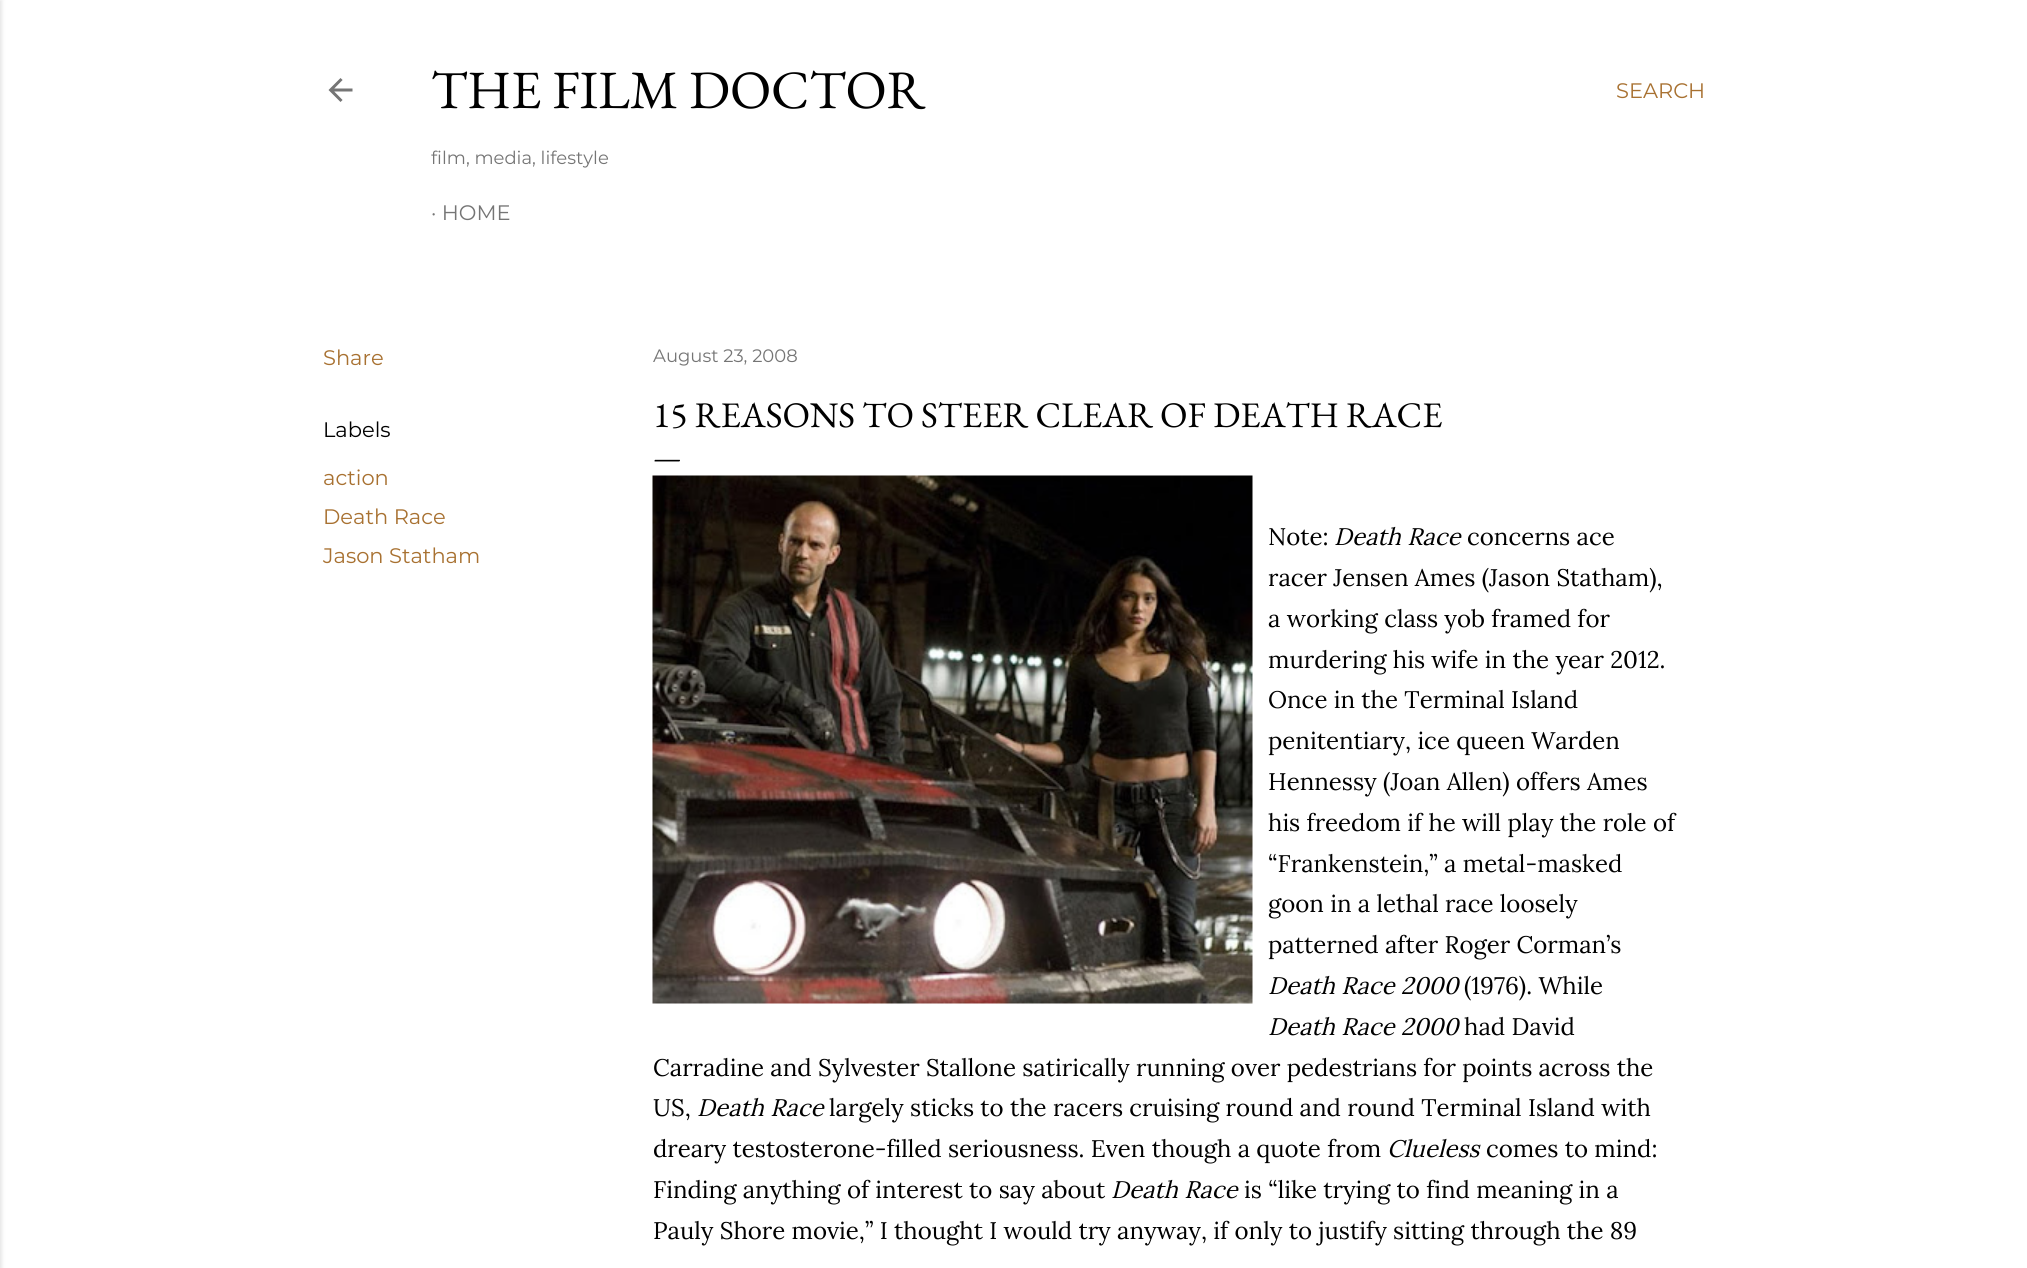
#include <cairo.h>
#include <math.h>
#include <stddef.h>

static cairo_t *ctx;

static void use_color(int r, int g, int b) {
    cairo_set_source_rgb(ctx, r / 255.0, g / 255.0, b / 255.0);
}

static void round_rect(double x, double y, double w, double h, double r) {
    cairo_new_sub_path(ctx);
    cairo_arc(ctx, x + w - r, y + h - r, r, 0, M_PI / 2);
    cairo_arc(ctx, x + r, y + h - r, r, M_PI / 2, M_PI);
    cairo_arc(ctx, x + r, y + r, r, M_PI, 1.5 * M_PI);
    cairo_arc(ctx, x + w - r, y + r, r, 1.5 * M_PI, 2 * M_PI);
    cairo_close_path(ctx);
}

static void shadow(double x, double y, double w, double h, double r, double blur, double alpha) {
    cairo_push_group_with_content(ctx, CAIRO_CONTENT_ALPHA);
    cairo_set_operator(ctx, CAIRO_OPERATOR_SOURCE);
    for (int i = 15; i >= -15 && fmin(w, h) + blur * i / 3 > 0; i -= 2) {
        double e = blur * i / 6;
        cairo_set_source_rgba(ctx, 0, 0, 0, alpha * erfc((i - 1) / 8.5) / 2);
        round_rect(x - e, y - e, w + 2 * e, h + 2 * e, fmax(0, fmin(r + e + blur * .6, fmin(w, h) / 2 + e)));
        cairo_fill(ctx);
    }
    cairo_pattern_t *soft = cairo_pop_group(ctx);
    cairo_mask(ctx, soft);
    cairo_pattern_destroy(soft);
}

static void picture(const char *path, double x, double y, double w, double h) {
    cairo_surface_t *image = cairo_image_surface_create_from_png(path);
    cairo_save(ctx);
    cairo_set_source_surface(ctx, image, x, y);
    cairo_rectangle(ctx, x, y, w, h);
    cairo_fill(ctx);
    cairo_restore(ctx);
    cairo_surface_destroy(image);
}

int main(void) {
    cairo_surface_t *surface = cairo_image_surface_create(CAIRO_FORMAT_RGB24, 2027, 1268);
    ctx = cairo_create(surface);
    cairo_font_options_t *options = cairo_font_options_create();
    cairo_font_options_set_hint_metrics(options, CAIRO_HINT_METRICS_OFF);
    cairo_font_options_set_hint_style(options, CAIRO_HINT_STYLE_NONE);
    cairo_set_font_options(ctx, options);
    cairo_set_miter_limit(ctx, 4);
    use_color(255, 255, 255);
    cairo_paint(ctx);
    use_color(0, 0, 0);
    shadow(-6, 0, 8, 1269, 0, 2, 0.1);
    picture("img1.png", 328, 78, 25, 24);
    cairo_select_font_face(ctx, "EB Garamond", CAIRO_FONT_SLANT_NORMAL, CAIRO_FONT_WEIGHT_NORMAL);
    cairo_set_font_size(ctx, 54);
    use_color(0, 0, 0);
    cairo_move_to(ctx, 431, 108);
    cairo_show_text(ctx, "THE FILM DOCTOR");
    cairo_select_font_face(ctx, "Montserrat", CAIRO_FONT_SLANT_NORMAL, CAIRO_FONT_WEIGHT_NORMAL);
    cairo_set_font_size(ctx, 18);
    use_color(117, 117, 117);
    cairo_move_to(ctx, 431, 164);
    cairo_show_text(ctx, "film, media, lifestyle");
    cairo_set_font_size(ctx, 21);
    cairo_move_to(ctx, 431, 220);
    cairo_show_text(ctx, "· HOME");
    use_color(168, 113, 49);
    cairo_move_to(ctx, 1616, 98);
    cairo_show_text(ctx, "SEARCH");
    cairo_move_to(ctx, 323, 365);
    cairo_show_text(ctx, "Share");
    use_color(0, 0, 0);
    cairo_move_to(ctx, 323, 437);
    cairo_show_text(ctx, "Labels");
    use_color(168, 113, 49);
    cairo_move_to(ctx, 323, 485);
    cairo_show_text(ctx, "action");
    cairo_move_to(ctx, 323, 524);
    cairo_show_text(ctx, "Death Race");
    cairo_move_to(ctx, 323, 563);
    cairo_show_text(ctx, "Jason Statham");
    cairo_set_font_size(ctx, 18);
    use_color(117, 117, 117);
    cairo_move_to(ctx, 653, 362);
    cairo_show_text(ctx, "August 23, 2008");
    cairo_select_font_face(ctx, "EB Garamond", CAIRO_FONT_SLANT_NORMAL, CAIRO_FONT_WEIGHT_NORMAL);
    cairo_set_font_size(ctx, 36);
    use_color(0, 0, 0);
    cairo_move_to(ctx, 653, 427);
    cairo_show_text(ctx, "15 REASONS TO STEER CLEAR OF DEATH RACE");
    cairo_set_font_size(ctx, 30);
    cairo_move_to(ctx, 653, 467);
    cairo_show_text(ctx, "—");
    picture("img2.png", 652, 475, 601, 529);
    cairo_select_font_face(ctx, "Lora", CAIRO_FONT_SLANT_NORMAL, CAIRO_FONT_WEIGHT_NORMAL);
    cairo_set_font_size(ctx, 24);
    cairo_move_to(ctx, 1268, 545);
    cairo_show_text(ctx, "Note:");
    cairo_select_font_face(ctx, "Lora", CAIRO_FONT_SLANT_ITALIC, CAIRO_FONT_WEIGHT_NORMAL);
    cairo_move_to(ctx, 1334, 545);
    cairo_show_text(ctx, "Death Race");
    cairo_select_font_face(ctx, "Lora", CAIRO_FONT_SLANT_NORMAL, CAIRO_FONT_WEIGHT_NORMAL);
    cairo_move_to(ctx, 1467, 545);
    cairo_show_text(ctx, "concerns ace");
    cairo_move_to(ctx, 1268, 586);
    cairo_show_text(ctx, "racer Jensen Ames (Jason Statham),");
    cairo_move_to(ctx, 1268, 627);
    cairo_show_text(ctx, "a working class yob framed for");
    cairo_move_to(ctx, 1268, 668);
    cairo_show_text(ctx, "murdering his wife in the year 2012.");
    cairo_move_to(ctx, 1268, 708);
    cairo_show_text(ctx, "Once in the Terminal Island");
    cairo_move_to(ctx, 1268, 749);
    cairo_show_text(ctx, "penitentiary, ice queen Warden");
    cairo_move_to(ctx, 1268, 790);
    cairo_show_text(ctx, "Hennessy (Joan Allen) offers Ames");
    cairo_move_to(ctx, 1268, 831);
    cairo_show_text(ctx, "his freedom if he will play the role of");
    cairo_move_to(ctx, 1268, 872);
    cairo_show_text(ctx, "“Frankenstein,” a metal-masked");
    cairo_move_to(ctx, 1268, 912);
    cairo_show_text(ctx, "goon in a lethal race loosely");
    cairo_move_to(ctx, 1268, 953);
    cairo_show_text(ctx, "patterned after Roger Corman’s");
    cairo_select_font_face(ctx, "Lora", CAIRO_FONT_SLANT_ITALIC, CAIRO_FONT_WEIGHT_NORMAL);
    cairo_move_to(ctx, 1268, 994);
    cairo_show_text(ctx, "Death Race 2000");
    cairo_select_font_face(ctx, "Lora", CAIRO_FONT_SLANT_NORMAL, CAIRO_FONT_WEIGHT_NORMAL);
    cairo_move_to(ctx, 1464, 994);
    cairo_show_text(ctx, "(1976). While");
    cairo_select_font_face(ctx, "Lora", CAIRO_FONT_SLANT_ITALIC, CAIRO_FONT_WEIGHT_NORMAL);
    cairo_move_to(ctx, 1268, 1035);
    cairo_show_text(ctx, "Death Race 2000");
    cairo_select_font_face(ctx, "Lora", CAIRO_FONT_SLANT_NORMAL, CAIRO_FONT_WEIGHT_NORMAL);
    cairo_move_to(ctx, 1464, 1035);
    cairo_show_text(ctx, "had David");
    cairo_move_to(ctx, 653, 1076);
    cairo_show_text(ctx, "Carradine and Sylvester Stallone satirically running over pedestrians for points across the");
    cairo_move_to(ctx, 653, 1116);
    cairo_show_text(ctx, "US,");
    cairo_select_font_face(ctx, "Lora", CAIRO_FONT_SLANT_ITALIC, CAIRO_FONT_WEIGHT_NORMAL);
    cairo_move_to(ctx, 697, 1116);
    cairo_show_text(ctx, "Death Race");
    cairo_select_font_face(ctx, "Lora", CAIRO_FONT_SLANT_NORMAL, CAIRO_FONT_WEIGHT_NORMAL);
    cairo_move_to(ctx, 829, 1116);
    cairo_show_text(ctx, "largely sticks to the racers cruising round and round Terminal Island with");
    cairo_move_to(ctx, 653, 1157);
    cairo_show_text(ctx, "dreary testosterone-filled seriousness. Even though a quote from");
    cairo_select_font_face(ctx, "Lora", CAIRO_FONT_SLANT_ITALIC, CAIRO_FONT_WEIGHT_NORMAL);
    cairo_move_to(ctx, 1387, 1157);
    cairo_show_text(ctx, "Clueless");
    cairo_select_font_face(ctx, "Lora", CAIRO_FONT_SLANT_NORMAL, CAIRO_FONT_WEIGHT_NORMAL);
    cairo_move_to(ctx, 1486, 1157);
    cairo_show_text(ctx, "comes to mind:");
    cairo_move_to(ctx, 653, 1198);
    cairo_show_text(ctx, "Finding anything of interest to say about");
    cairo_select_font_face(ctx, "Lora", CAIRO_FONT_SLANT_ITALIC, CAIRO_FONT_WEIGHT_NORMAL);
    cairo_move_to(ctx, 1111, 1198);
    cairo_show_text(ctx, "Death Race");
    cairo_select_font_face(ctx, "Lora", CAIRO_FONT_SLANT_NORMAL, CAIRO_FONT_WEIGHT_NORMAL);
    cairo_move_to(ctx, 1244, 1198);
    cairo_show_text(ctx, "is “like trying to find meaning in a");
    cairo_move_to(ctx, 653, 1239);
    cairo_show_text(ctx, "Pauly Shore movie,” I thought I would try anyway, if only to justify sitting through the 89");
    cairo_surface_write_to_png(surface, "result.png");
    cairo_font_options_destroy(options);
    cairo_destroy(ctx);
    cairo_surface_destroy(surface);
    return 0;
}
